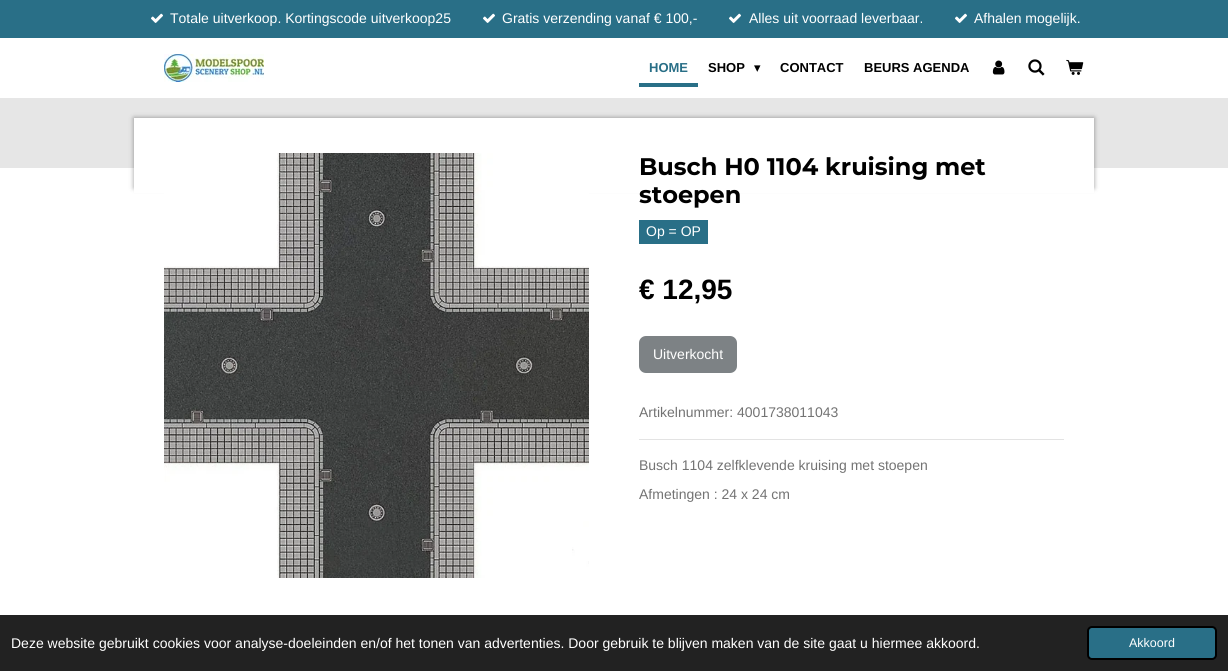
#include <cairo.h>
#include <math.h>
#include <stddef.h>

static cairo_t *ctx;

static void use_color(int r, int g, int b) {
    cairo_set_source_rgb(ctx, r / 255.0, g / 255.0, b / 255.0);
}

static void round_rect(double x, double y, double w, double h, double r) {
    cairo_new_sub_path(ctx);
    cairo_arc(ctx, x + w - r, y + h - r, r, 0, M_PI / 2);
    cairo_arc(ctx, x + r, y + h - r, r, M_PI / 2, M_PI);
    cairo_arc(ctx, x + r, y + r, r, M_PI, 1.5 * M_PI);
    cairo_arc(ctx, x + w - r, y + r, r, 1.5 * M_PI, 2 * M_PI);
    cairo_close_path(ctx);
}

static void shadow(double x, double y, double w, double h, double r, double blur, double alpha) {
    cairo_push_group_with_content(ctx, CAIRO_CONTENT_ALPHA);
    cairo_set_operator(ctx, CAIRO_OPERATOR_SOURCE);
    for (int i = 15; i >= -15 && fmin(w, h) + blur * i / 3 > 0; i -= 2) {
        double e = blur * i / 6;
        cairo_set_source_rgba(ctx, 0, 0, 0, alpha * erfc((i - 1) / 8.5) / 2);
        round_rect(x - e, y - e, w + 2 * e, h + 2 * e, fmax(0, fmin(r + e + blur * .6, fmin(w, h) / 2 + e)));
        cairo_fill(ctx);
    }
    cairo_pattern_t *soft = cairo_pop_group(ctx);
    cairo_mask(ctx, soft);
    cairo_pattern_destroy(soft);
}

static void picture(const char *path, double x, double y, double w, double h) {
    cairo_surface_t *image = cairo_image_surface_create_from_png(path);
    cairo_save(ctx);
    cairo_set_source_surface(ctx, image, x, y);
    cairo_rectangle(ctx, x, y, w, h);
    cairo_fill(ctx);
    cairo_restore(ctx);
    cairo_surface_destroy(image);
}

int main(void) {
    cairo_surface_t *surface = cairo_image_surface_create(CAIRO_FORMAT_RGB24, 1228, 671);
    ctx = cairo_create(surface);
    cairo_font_options_t *options = cairo_font_options_create();
    cairo_font_options_set_hint_metrics(options, CAIRO_HINT_METRICS_OFF);
    cairo_font_options_set_hint_style(options, CAIRO_HINT_STYLE_NONE);
    cairo_set_font_options(ctx, options);
    cairo_set_miter_limit(ctx, 4);
    use_color(255, 255, 255);
    cairo_paint(ctx);
    use_color(41, 111, 135);
    cairo_rectangle(ctx, 0, 0, 1228, 38);
    cairo_fill(ctx);
    picture("img1.png", 151, 13, 12, 10);
    cairo_select_font_face(ctx, "Liberation Sans", CAIRO_FONT_SLANT_NORMAL, CAIRO_FONT_WEIGHT_NORMAL);
    cairo_set_font_size(ctx, 14);
    use_color(255, 255, 255);
    cairo_move_to(ctx, 170, 23);
    cairo_show_text(ctx, "Totale uitverkoop. Kortingscode uitverkoop25");
    picture("img1.png", 483, 13, 12, 10);
    cairo_move_to(ctx, 502, 23);
    cairo_show_text(ctx, "Gratis verzending vanaf € 100,-");
    picture("img1.png", 729, 13, 12, 10);
    cairo_move_to(ctx, 749, 23);
    cairo_show_text(ctx, "Alles uit voorraad leverbaar.");
    picture("img1.png", 955, 13, 12, 10);
    cairo_move_to(ctx, 974, 23);
    cairo_show_text(ctx, "Afhalen mogelijk.");
    picture("img2.png", 164, 54, 100, 28);
    use_color(41, 111, 135);
    cairo_rectangle(ctx, 639, 83, 59, 4);
    cairo_fill(ctx);
    cairo_select_font_face(ctx, "Liberation Sans", CAIRO_FONT_SLANT_NORMAL, CAIRO_FONT_WEIGHT_BOLD);
    cairo_set_font_size(ctx, 13);
    cairo_move_to(ctx, 649, 72);
    cairo_show_text(ctx, "HOME");
    use_color(0, 0, 0);
    cairo_move_to(ctx, 708, 72);
    cairo_show_text(ctx, "SHOP");
    cairo_select_font_face(ctx, "DejaVu Sans", CAIRO_FONT_SLANT_NORMAL, CAIRO_FONT_WEIGHT_NORMAL);
    cairo_move_to(ctx, 754, 72);
    cairo_show_text(ctx, "▾");
    cairo_select_font_face(ctx, "Liberation Sans", CAIRO_FONT_SLANT_NORMAL, CAIRO_FONT_WEIGHT_BOLD);
    cairo_move_to(ctx, 780, 72);
    cairo_show_text(ctx, "CONTACT");
    cairo_move_to(ctx, 864, 72);
    cairo_show_text(ctx, "BEURS AGENDA");
    picture("img3.png", 992, 60, 13, 15);
    picture("img4.png", 1028, 59, 17, 17);
    picture("img5.png", 1066, 59, 18, 16);
    use_color(230, 230, 230);
    cairo_rectangle(ctx, 0, 98, 1228, 70);
    cairo_fill(ctx);
    use_color(0, 0, 0);
    shadow(134, 118, 960, 70, 0, 2.5, 0.4);
    use_color(255, 255, 255);
    cairo_rectangle(ctx, 134, 118, 960, 75);
    cairo_fill(ctx);
    picture("img6.png", 164, 153, 425, 425);
    cairo_select_font_face(ctx, "Montserrat", CAIRO_FONT_SLANT_NORMAL, CAIRO_FONT_WEIGHT_BOLD);
    cairo_set_font_size(ctx, 24);
    use_color(0, 0, 0);
    cairo_move_to(ctx, 639, 175);
    cairo_show_text(ctx, "Busch H0 1104 kruising met");
    cairo_move_to(ctx, 639, 203);
    cairo_show_text(ctx, "stoepen");
    use_color(41, 111, 135);
    cairo_rectangle(ctx, 639, 220, 69, 24);
    cairo_fill(ctx);
    cairo_select_font_face(ctx, "Liberation Sans", CAIRO_FONT_SLANT_NORMAL, CAIRO_FONT_WEIGHT_NORMAL);
    cairo_set_font_size(ctx, 14);
    use_color(255, 255, 255);
    cairo_move_to(ctx, 646, 236);
    cairo_show_text(ctx, "Op = OP");
    cairo_select_font_face(ctx, "Liberation Sans", CAIRO_FONT_SLANT_NORMAL, CAIRO_FONT_WEIGHT_BOLD);
    cairo_set_font_size(ctx, 28);
    use_color(0, 0, 0);
    cairo_move_to(ctx, 639, 299);
    cairo_show_text(ctx, "€ 12,95");
    use_color(125, 130, 133);
    round_rect(639, 336, 98, 37, 7);
    cairo_fill(ctx);
    cairo_select_font_face(ctx, "Liberation Sans", CAIRO_FONT_SLANT_NORMAL, CAIRO_FONT_WEIGHT_NORMAL);
    cairo_set_font_size(ctx, 14);
    use_color(255, 255, 255);
    cairo_move_to(ctx, 653, 359);
    cairo_show_text(ctx, "Uitverkocht");
    use_color(115, 115, 115);
    cairo_move_to(ctx, 639, 417);
    cairo_show_text(ctx, "Artikelnummer: 4001738011043");
    use_color(227, 227, 227);
    cairo_rectangle(ctx, 639, 439, 425, 1);
    cairo_fill(ctx);
    use_color(115, 115, 115);
    cairo_move_to(ctx, 639, 470);
    cairo_show_text(ctx, "Busch 1104 zelfklevende kruising met stoepen");
    cairo_move_to(ctx, 639, 499);
    cairo_show_text(ctx, "Afmetingen : 24 x 24 cm");
    use_color(34, 34, 34);
    cairo_rectangle(ctx, 0, 615, 1228, 56);
    cairo_fill(ctx);
    use_color(255, 255, 255);
    cairo_move_to(ctx, 11, 648);
    cairo_show_text(ctx, "Deze website gebruikt cookies voor analyse-doeleinden en/of het tonen van advertenties. Door gebruik te blijven maken van de site gaat u hiermee akkoord.");
    use_color(41, 111, 135);
    round_rect(1088, 627, 128, 32, 4);
    cairo_fill_preserve(ctx);
    use_color(0, 0, 0);
    cairo_stroke(ctx);
    cairo_set_font_size(ctx, 12.5);
    use_color(255, 255, 255);
    cairo_move_to(ctx, 1129, 647);
    cairo_show_text(ctx, "Akkoord");
    cairo_surface_write_to_png(surface, "result.png");
    cairo_font_options_destroy(options);
    cairo_destroy(ctx);
    cairo_surface_destroy(surface);
    return 0;
}
